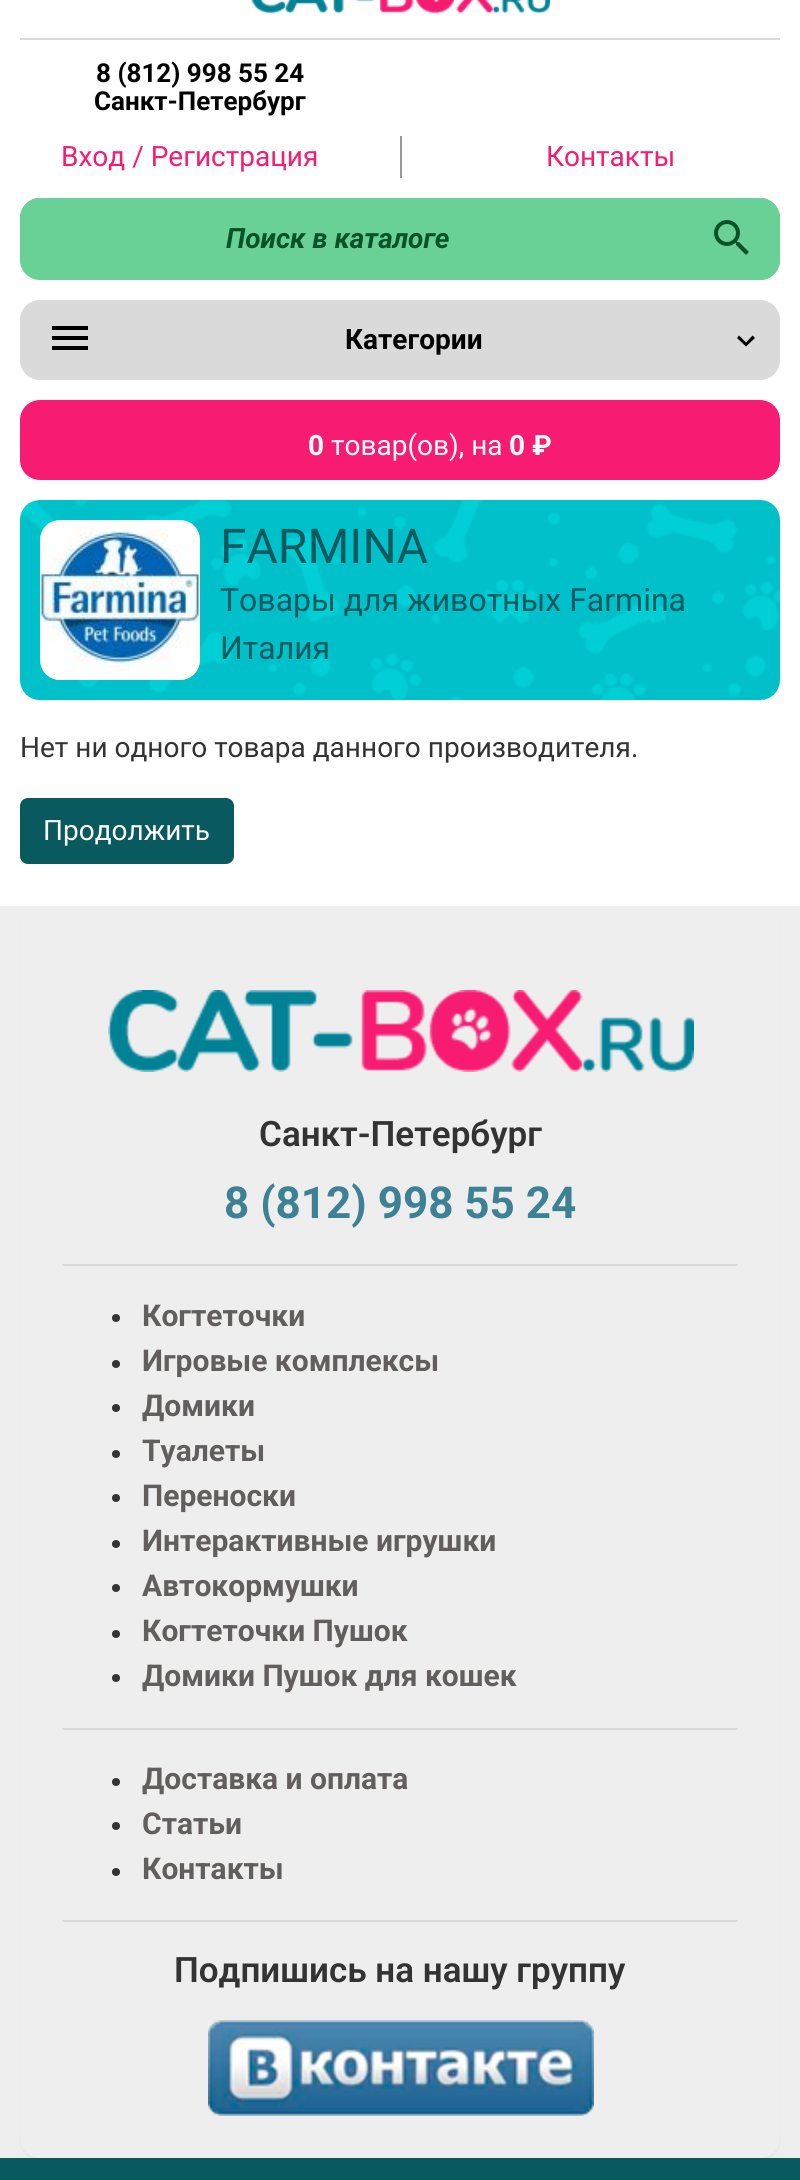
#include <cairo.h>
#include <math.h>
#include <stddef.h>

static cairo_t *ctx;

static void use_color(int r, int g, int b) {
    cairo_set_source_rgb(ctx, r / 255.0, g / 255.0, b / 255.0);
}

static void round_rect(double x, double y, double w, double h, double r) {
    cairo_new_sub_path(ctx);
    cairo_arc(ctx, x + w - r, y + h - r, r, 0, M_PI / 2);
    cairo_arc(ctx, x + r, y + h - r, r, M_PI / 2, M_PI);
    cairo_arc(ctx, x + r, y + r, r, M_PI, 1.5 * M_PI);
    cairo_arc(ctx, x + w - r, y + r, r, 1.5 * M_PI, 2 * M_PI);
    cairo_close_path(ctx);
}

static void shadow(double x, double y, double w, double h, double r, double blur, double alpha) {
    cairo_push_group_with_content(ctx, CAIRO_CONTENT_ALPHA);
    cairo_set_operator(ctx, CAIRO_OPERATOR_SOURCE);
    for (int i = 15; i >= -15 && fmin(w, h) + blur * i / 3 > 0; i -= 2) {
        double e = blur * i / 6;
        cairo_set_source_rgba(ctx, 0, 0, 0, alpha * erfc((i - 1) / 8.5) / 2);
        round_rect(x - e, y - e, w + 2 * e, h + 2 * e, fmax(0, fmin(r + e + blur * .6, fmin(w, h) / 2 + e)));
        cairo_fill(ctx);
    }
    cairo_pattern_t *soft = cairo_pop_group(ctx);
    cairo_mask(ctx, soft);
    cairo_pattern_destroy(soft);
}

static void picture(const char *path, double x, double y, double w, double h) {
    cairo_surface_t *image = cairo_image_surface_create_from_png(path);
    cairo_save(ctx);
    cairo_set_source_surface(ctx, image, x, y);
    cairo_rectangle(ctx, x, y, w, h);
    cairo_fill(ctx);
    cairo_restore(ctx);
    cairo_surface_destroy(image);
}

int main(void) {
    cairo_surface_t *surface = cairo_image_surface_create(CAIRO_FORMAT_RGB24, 800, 2180);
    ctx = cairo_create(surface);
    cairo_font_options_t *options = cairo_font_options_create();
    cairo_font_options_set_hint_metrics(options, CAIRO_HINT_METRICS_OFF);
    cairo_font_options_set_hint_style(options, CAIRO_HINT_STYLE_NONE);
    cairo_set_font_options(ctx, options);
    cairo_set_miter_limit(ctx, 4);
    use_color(255, 255, 255);
    cairo_paint(ctx);
    picture("img1.png", 251, 0, 299, 14);
    use_color(218, 218, 218);
    cairo_rectangle(ctx, 20, 38, 760, 2);
    cairo_fill(ctx);
    cairo_select_font_face(ctx, "Roboto", CAIRO_FONT_SLANT_NORMAL, CAIRO_FONT_WEIGHT_BOLD);
    cairo_set_font_size(ctx, 26);
    use_color(0, 0, 0);
    cairo_move_to(ctx, 96, 82);
    cairo_show_text(ctx, "8 (812) 998 55 24");
    cairo_move_to(ctx, 94, 110);
    cairo_show_text(ctx, "Санкт-Петербург");
    cairo_select_font_face(ctx, "Roboto", CAIRO_FONT_SLANT_NORMAL, CAIRO_FONT_WEIGHT_NORMAL);
    cairo_set_font_size(ctx, 28);
    use_color(247, 27, 114);
    cairo_move_to(ctx, 61, 166);
    cairo_show_text(ctx, "Вход / Регистрация");
    use_color(153, 153, 153);
    cairo_rectangle(ctx, 400, 136, 2, 42);
    cairo_fill(ctx);
    use_color(247, 27, 114);
    cairo_move_to(ctx, 546, 166);
    cairo_show_text(ctx, "Контакты");
    use_color(105, 209, 149);
    round_rect(20, 198, 760, 82, 20);
    cairo_fill(ctx);
    round_rect(20, 198, 664, 80, 20);
    cairo_fill(ctx);
    cairo_select_font_face(ctx, "Roboto", CAIRO_FONT_SLANT_ITALIC, CAIRO_FONT_WEIGHT_BOLD);
    use_color(7, 83, 39);
    cairo_move_to(ctx, 226, 248);
    cairo_show_text(ctx, "Поиск в каталоге");
    use_color(105, 209, 149);
    round_rect(682, 198, 98, 82, 20);
    cairo_fill(ctx);
    picture("img2.png", 714, 220, 35, 35);
    use_color(218, 218, 218);
    round_rect(20, 300, 760, 80, 20);
    cairo_fill(ctx);
    use_color(0, 0, 0);
    cairo_new_path(ctx);
    cairo_move_to(ctx, 52, 350);
    cairo_line_to(ctx, 88, 350);
    cairo_line_to(ctx, 88, 346);
    cairo_line_to(ctx, 52, 346);
    cairo_close_path(ctx);
    cairo_move_to(ctx, 52, 340);
    cairo_line_to(ctx, 88, 340);
    cairo_line_to(ctx, 88, 336);
    cairo_line_to(ctx, 52, 336);
    cairo_close_path(ctx);
    cairo_move_to(ctx, 52, 326);
    cairo_line_to(ctx, 52, 330);
    cairo_line_to(ctx, 88, 330);
    cairo_line_to(ctx, 88, 326);
    cairo_close_path(ctx);
    cairo_fill(ctx);
    cairo_select_font_face(ctx, "Roboto", CAIRO_FONT_SLANT_NORMAL, CAIRO_FONT_WEIGHT_BOLD);
    cairo_move_to(ctx, 345, 349);
    cairo_show_text(ctx, "Категории");
    cairo_new_path(ctx);
    cairo_move_to(ctx, 739, 335.5);
    cairo_line_to(ctx, 746, 342.5);
    cairo_line_to(ctx, 752.5, 335.5);
    cairo_line_to(ctx, 755, 338);
    cairo_line_to(ctx, 746, 346.5);
    cairo_line_to(ctx, 737, 338);
    cairo_close_path(ctx);
    cairo_fill(ctx);
    use_color(247, 27, 114);
    round_rect(20, 400, 760, 80, 20);
    cairo_fill(ctx);
    use_color(255, 255, 255);
    cairo_move_to(ctx, 308, 455);
    cairo_show_text(ctx, "0");
    cairo_select_font_face(ctx, "Roboto", CAIRO_FONT_SLANT_NORMAL, CAIRO_FONT_WEIGHT_NORMAL);
    cairo_move_to(ctx, 331, 455);
    cairo_show_text(ctx, "товар(ов), на");
    cairo_select_font_face(ctx, "Roboto", CAIRO_FONT_SLANT_NORMAL, CAIRO_FONT_WEIGHT_BOLD);
    cairo_move_to(ctx, 509, 455);
    cairo_show_text(ctx, "0 ₽");
    picture("img3.png", 20, 500, 760, 200);
    picture("img4.png", 40, 520, 160, 160);
    cairo_select_font_face(ctx, "Roboto", CAIRO_FONT_SLANT_NORMAL, CAIRO_FONT_WEIGHT_NORMAL);
    cairo_set_font_size(ctx, 48);
    use_color(9, 90, 95);
    cairo_move_to(ctx, 220, 563);
    cairo_show_text(ctx, "FARMINA");
    cairo_set_font_size(ctx, 32);
    cairo_move_to(ctx, 220, 611);
    cairo_show_text(ctx, "Товары для животных Farmina");
    cairo_move_to(ctx, 220, 659);
    cairo_show_text(ctx, "Италия");
    cairo_set_font_size(ctx, 28);
    use_color(51, 51, 51);
    cairo_move_to(ctx, 20, 757);
    cairo_show_text(ctx, "Нет ни одного товара данного производителя.");
    use_color(9, 90, 95);
    round_rect(21, 799, 212, 64, 7);
    cairo_fill_preserve(ctx);
    cairo_stroke(ctx);
    use_color(255, 255, 255);
    cairo_move_to(ctx, 43, 840);
    cairo_show_text(ctx, "Продолжить");
    use_color(238, 238, 238);
    cairo_rectangle(ctx, 0, 906, 800, 1252);
    cairo_fill(ctx);
    use_color(9, 90, 95);
    cairo_rectangle(ctx, 0, 2158, 800, 22);
    cairo_fill(ctx);
    cairo_save(ctx);
    cairo_set_fill_rule(ctx, CAIRO_FILL_RULE_EVEN_ODD);
    cairo_new_path(ctx);
    cairo_move_to(ctx, 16, 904);
    cairo_line_to(ctx, 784, 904);
    cairo_line_to(ctx, 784, 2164);
    cairo_line_to(ctx, 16, 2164);
    cairo_close_path(ctx);
    cairo_move_to(ctx, 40, 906);
    cairo_line_to(ctx, 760, 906);
    cairo_curve_to(ctx, 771, 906, 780, 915, 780, 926);
    cairo_line_to(ctx, 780, 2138);
    cairo_curve_to(ctx, 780, 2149, 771, 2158, 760, 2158);
    cairo_line_to(ctx, 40, 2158);
    cairo_curve_to(ctx, 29, 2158, 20, 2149, 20, 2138);
    cairo_line_to(ctx, 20, 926);
    cairo_curve_to(ctx, 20, 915, 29, 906, 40, 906);
    cairo_close_path(ctx);
    cairo_clip(ctx);
    use_color(0, 0, 0);
    shadow(20, 908, 760, 1252, 20, 1, 0.05);
    cairo_restore(ctx);
    picture("img5.png", 108, 990, 586, 82);
    cairo_select_font_face(ctx, "Roboto SemiBold", CAIRO_FONT_SLANT_NORMAL, CAIRO_FONT_WEIGHT_NORMAL);
    cairo_set_font_size(ctx, 35);
    use_color(51, 51, 51);
    cairo_move_to(ctx, 259, 1146);
    cairo_show_text(ctx, "Санкт-Петербург");
    cairo_select_font_face(ctx, "Roboto", CAIRO_FONT_SLANT_NORMAL, CAIRO_FONT_WEIGHT_BOLD);
    cairo_set_font_size(ctx, 44);
    use_color(61, 129, 148);
    cairo_move_to(ctx, 224, 1218);
    cairo_show_text(ctx, "8 (812) 998 55 24");
    use_color(218, 218, 218);
    cairo_rectangle(ctx, 62, 1264, 676, 2);
    cairo_fill(ctx);
    use_color(51, 51, 51);
    cairo_arc(ctx, 116, 1318, 4, 0, 2 * M_PI);
    cairo_fill(ctx);
    cairo_set_font_size(ctx, 30);
    use_color(97, 94, 93);
    cairo_move_to(ctx, 142, 1326);
    cairo_show_text(ctx, "Когтеточки");
    use_color(51, 51, 51);
    cairo_new_path(ctx);
    cairo_arc(ctx, 116, 1364, 4, 0, 2 * M_PI);
    cairo_fill(ctx);
    use_color(97, 94, 93);
    cairo_move_to(ctx, 142, 1371);
    cairo_show_text(ctx, "Игровые комплексы");
    use_color(51, 51, 51);
    cairo_new_path(ctx);
    cairo_arc(ctx, 116, 1408, 4, 0, 2 * M_PI);
    cairo_fill(ctx);
    use_color(97, 94, 93);
    cairo_move_to(ctx, 142, 1416);
    cairo_show_text(ctx, "Домики");
    use_color(51, 51, 51);
    cairo_new_path(ctx);
    cairo_arc(ctx, 116, 1454, 4, 0, 2 * M_PI);
    cairo_fill(ctx);
    use_color(97, 94, 93);
    cairo_move_to(ctx, 142, 1461);
    cairo_show_text(ctx, "Туалеты");
    use_color(51, 51, 51);
    cairo_new_path(ctx);
    cairo_arc(ctx, 116, 1498, 4, 0, 2 * M_PI);
    cairo_fill(ctx);
    use_color(97, 94, 93);
    cairo_move_to(ctx, 142, 1506);
    cairo_show_text(ctx, "Переноски");
    use_color(51, 51, 51);
    cairo_new_path(ctx);
    cairo_arc(ctx, 116, 1544, 4, 0, 2 * M_PI);
    cairo_fill(ctx);
    use_color(97, 94, 93);
    cairo_move_to(ctx, 142, 1551);
    cairo_show_text(ctx, "Интерактивные игрушки");
    use_color(51, 51, 51);
    cairo_new_path(ctx);
    cairo_arc(ctx, 116, 1588, 4, 0, 2 * M_PI);
    cairo_fill(ctx);
    use_color(97, 94, 93);
    cairo_move_to(ctx, 142, 1596);
    cairo_show_text(ctx, "Автокормушки");
    use_color(51, 51, 51);
    cairo_new_path(ctx);
    cairo_arc(ctx, 116, 1634, 4, 0, 2 * M_PI);
    cairo_fill(ctx);
    use_color(97, 94, 93);
    cairo_move_to(ctx, 142, 1641);
    cairo_show_text(ctx, "Когтеточки Пушок");
    use_color(51, 51, 51);
    cairo_new_path(ctx);
    cairo_arc(ctx, 116, 1678, 4, 0, 2 * M_PI);
    cairo_fill(ctx);
    use_color(97, 94, 93);
    cairo_move_to(ctx, 142, 1686);
    cairo_show_text(ctx, "Домики Пушок для кошек");
    use_color(218, 218, 218);
    cairo_rectangle(ctx, 62, 1728, 676, 2);
    cairo_fill(ctx);
    use_color(51, 51, 51);
    cairo_arc(ctx, 116, 1782, 4, 0, 2 * M_PI);
    cairo_fill(ctx);
    use_color(97, 94, 93);
    cairo_move_to(ctx, 142, 1789);
    cairo_show_text(ctx, "Доставка и оплата");
    use_color(51, 51, 51);
    cairo_new_path(ctx);
    cairo_arc(ctx, 116, 1826, 4, 0, 2 * M_PI);
    cairo_fill(ctx);
    use_color(97, 94, 93);
    cairo_move_to(ctx, 142, 1834);
    cairo_show_text(ctx, "Статьи");
    use_color(51, 51, 51);
    cairo_new_path(ctx);
    cairo_arc(ctx, 116, 1872, 4, 0, 2 * M_PI);
    cairo_fill(ctx);
    use_color(97, 94, 93);
    cairo_move_to(ctx, 142, 1879);
    cairo_show_text(ctx, "Контакты");
    use_color(218, 218, 218);
    cairo_rectangle(ctx, 62, 1920, 676, 2);
    cairo_fill(ctx);
    cairo_select_font_face(ctx, "Roboto SemiBold", CAIRO_FONT_SLANT_NORMAL, CAIRO_FONT_WEIGHT_NORMAL);
    cairo_set_font_size(ctx, 35);
    use_color(51, 51, 51);
    cairo_move_to(ctx, 174, 1982);
    cairo_show_text(ctx, "Подпишись на нашу группу");
    picture("img6.png", 208, 2020, 386, 96);
    cairo_surface_write_to_png(surface, "result.png");
    cairo_font_options_destroy(options);
    cairo_destroy(ctx);
    cairo_surface_destroy(surface);
    return 0;
}
